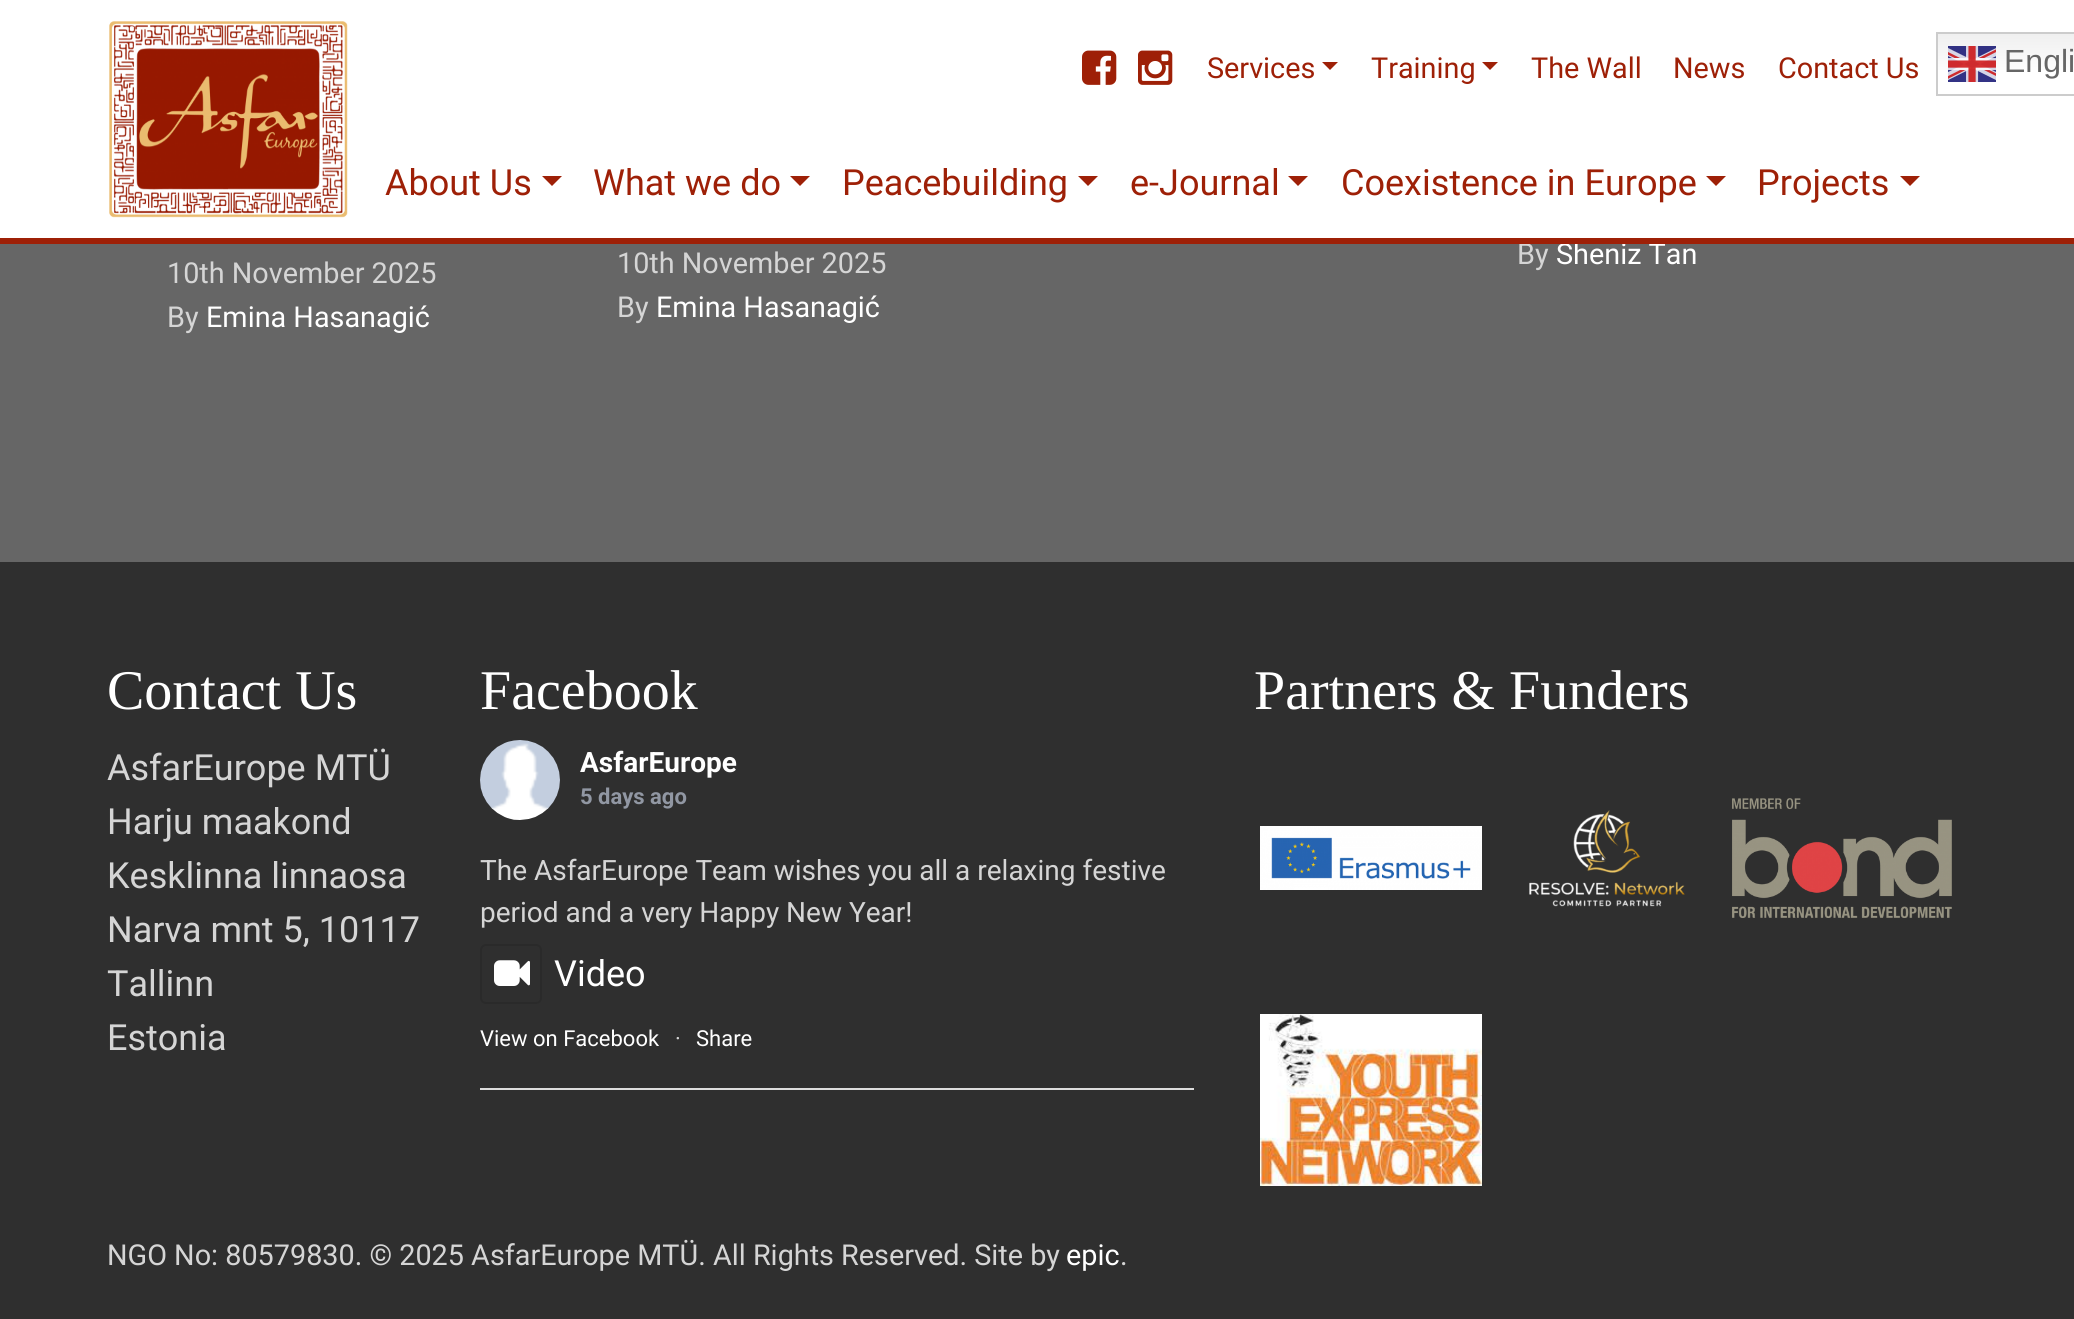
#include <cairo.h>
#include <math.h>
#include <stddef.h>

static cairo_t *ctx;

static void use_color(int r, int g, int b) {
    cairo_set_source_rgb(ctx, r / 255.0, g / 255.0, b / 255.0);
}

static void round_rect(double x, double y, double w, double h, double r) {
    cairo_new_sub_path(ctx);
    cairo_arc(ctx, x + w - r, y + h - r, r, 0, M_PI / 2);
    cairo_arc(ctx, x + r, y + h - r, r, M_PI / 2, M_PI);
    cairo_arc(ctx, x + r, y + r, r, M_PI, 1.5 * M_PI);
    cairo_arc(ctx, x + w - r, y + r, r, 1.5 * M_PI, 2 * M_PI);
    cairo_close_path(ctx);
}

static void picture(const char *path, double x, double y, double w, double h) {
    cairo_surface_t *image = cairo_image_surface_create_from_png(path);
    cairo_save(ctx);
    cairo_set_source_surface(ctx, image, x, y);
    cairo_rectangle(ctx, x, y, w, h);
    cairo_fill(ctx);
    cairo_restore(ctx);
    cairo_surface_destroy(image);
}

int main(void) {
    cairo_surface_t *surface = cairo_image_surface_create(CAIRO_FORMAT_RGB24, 2074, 1319);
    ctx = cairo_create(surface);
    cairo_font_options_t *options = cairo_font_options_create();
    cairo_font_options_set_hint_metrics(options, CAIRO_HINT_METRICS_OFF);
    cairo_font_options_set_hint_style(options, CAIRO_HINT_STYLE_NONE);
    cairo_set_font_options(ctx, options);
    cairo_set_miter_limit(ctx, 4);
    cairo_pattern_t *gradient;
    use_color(47, 47, 47);
    cairo_paint(ctx);
    use_color(255, 255, 255);
    cairo_rectangle(ctx, 0, 0, 2074, 238);
    cairo_fill(ctx);
    use_color(102, 102, 102);
    cairo_rectangle(ctx, 0, 244, 2074, 318);
    cairo_fill(ctx);
    cairo_select_font_face(ctx, "Roboto", CAIRO_FONT_SLANT_NORMAL, CAIRO_FONT_WEIGHT_NORMAL);
    cairo_set_font_size(ctx, 28.8);
    use_color(213, 213, 213);
    cairo_move_to(ctx, 1517, 264);
    cairo_show_text(ctx, "By");
    use_color(255, 255, 255);
    cairo_move_to(ctx, 1556, 264);
    cairo_show_text(ctx, "Sheniz Tan");
    use_color(158, 32, 7);
    cairo_rectangle(ctx, 0, 238, 2074, 6);
    cairo_fill(ctx);
    picture("img1.png", 109, 21, 239, 197);
    picture("img2.png", 1082, 50, 35, 35);
    picture("img3.png", 1138, 50, 35, 35);
    cairo_move_to(ctx, 1207, 78);
    cairo_show_text(ctx, "Services");
    cairo_new_path(ctx);
    cairo_move_to(ctx, 1322, 62);
    cairo_line_to(ctx, 1338, 62);
    cairo_line_to(ctx, 1330, 70);
    cairo_close_path(ctx);
    cairo_fill(ctx);
    cairo_move_to(ctx, 1371, 78);
    cairo_show_text(ctx, "Training");
    cairo_new_path(ctx);
    cairo_move_to(ctx, 1482, 62);
    cairo_line_to(ctx, 1498, 62);
    cairo_line_to(ctx, 1490, 70);
    cairo_close_path(ctx);
    cairo_fill(ctx);
    cairo_move_to(ctx, 1531, 78);
    cairo_show_text(ctx, "The Wall");
    cairo_move_to(ctx, 1673, 78);
    cairo_show_text(ctx, "News");
    cairo_move_to(ctx, 1778, 78);
    cairo_show_text(ctx, "Contact Us");
    gradient = cairo_pattern_create_linear(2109, 32, 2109, 96);
    cairo_pattern_add_color_stop_rgba(gradient, 0, 0.937, 0.937, 0.937, 1);
    cairo_pattern_add_color_stop_rgba(gradient, 0.7, 1, 1, 1, 1);
    cairo_set_source(ctx, gradient);
    cairo_pattern_destroy(gradient);
    cairo_rectangle(ctx, 1938, 34, 136, 36);
    cairo_fill(ctx);
    cairo_rectangle(ctx, 1937, 33, 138, 62);
    use_color(204, 204, 204);
    cairo_stroke(ctx);
    picture("img4.png", 1948, 46, 48, 36);
    cairo_select_font_face(ctx, "Liberation Sans", CAIRO_FONT_SLANT_NORMAL, CAIRO_FONT_WEIGHT_NORMAL);
    cairo_set_font_size(ctx, 32);
    use_color(102, 102, 102);
    cairo_move_to(ctx, 2004, 72);
    cairo_show_text(ctx, "Engli");
    cairo_select_font_face(ctx, "Roboto", CAIRO_FONT_SLANT_NORMAL, CAIRO_FONT_WEIGHT_NORMAL);
    cairo_set_font_size(ctx, 36);
    use_color(158, 32, 7);
    cairo_move_to(ctx, 385, 195);
    cairo_show_text(ctx, "About Us");
    cairo_new_path(ctx);
    cairo_move_to(ctx, 542, 176);
    cairo_line_to(ctx, 562, 176);
    cairo_line_to(ctx, 552, 186);
    cairo_close_path(ctx);
    cairo_fill(ctx);
    cairo_move_to(ctx, 593, 195);
    cairo_show_text(ctx, "What we do");
    cairo_new_path(ctx);
    cairo_move_to(ctx, 790, 176);
    cairo_line_to(ctx, 810, 176);
    cairo_line_to(ctx, 800, 186);
    cairo_close_path(ctx);
    cairo_fill(ctx);
    cairo_move_to(ctx, 842, 195);
    cairo_show_text(ctx, "Peacebuilding");
    cairo_new_path(ctx);
    cairo_move_to(ctx, 1078, 176);
    cairo_line_to(ctx, 1098, 176);
    cairo_line_to(ctx, 1088, 186);
    cairo_close_path(ctx);
    cairo_fill(ctx);
    cairo_move_to(ctx, 1130, 195);
    cairo_show_text(ctx, "e-Journal");
    cairo_new_path(ctx);
    cairo_move_to(ctx, 1288, 176);
    cairo_line_to(ctx, 1308, 176);
    cairo_line_to(ctx, 1298, 186);
    cairo_close_path(ctx);
    cairo_fill(ctx);
    cairo_move_to(ctx, 1341, 195);
    cairo_show_text(ctx, "Coexistence in Europe");
    cairo_new_path(ctx);
    cairo_move_to(ctx, 1706, 176);
    cairo_line_to(ctx, 1726, 176);
    cairo_line_to(ctx, 1716, 186);
    cairo_close_path(ctx);
    cairo_fill(ctx);
    cairo_move_to(ctx, 1757, 195);
    cairo_show_text(ctx, "Projects");
    cairo_new_path(ctx);
    cairo_move_to(ctx, 1900, 176);
    cairo_line_to(ctx, 1920, 176);
    cairo_line_to(ctx, 1910, 186);
    cairo_close_path(ctx);
    cairo_fill(ctx);
    cairo_set_font_size(ctx, 28.8);
    use_color(213, 213, 213);
    cairo_move_to(ctx, 167, 283);
    cairo_show_text(ctx, "10th November 2025");
    cairo_move_to(ctx, 167, 327);
    cairo_show_text(ctx, "By");
    use_color(255, 255, 255);
    cairo_move_to(ctx, 206, 327);
    cairo_show_text(ctx, "Emina Hasanagić");
    use_color(213, 213, 213);
    cairo_move_to(ctx, 617, 273);
    cairo_show_text(ctx, "10th November 2025");
    cairo_move_to(ctx, 617, 317);
    cairo_show_text(ctx, "By");
    use_color(255, 255, 255);
    cairo_move_to(ctx, 656, 317);
    cairo_show_text(ctx, "Emina Hasanagić");
    cairo_select_font_face(ctx, "Liberation Serif", CAIRO_FONT_SLANT_NORMAL, CAIRO_FONT_WEIGHT_NORMAL);
    cairo_set_font_size(ctx, 56);
    cairo_move_to(ctx, 107, 709);
    cairo_show_text(ctx, "Contact Us");
    cairo_select_font_face(ctx, "Roboto", CAIRO_FONT_SLANT_NORMAL, CAIRO_FONT_WEIGHT_NORMAL);
    cairo_set_font_size(ctx, 36);
    use_color(213, 213, 213);
    cairo_move_to(ctx, 107, 780);
    cairo_show_text(ctx, "AsfarEurope MTÜ");
    cairo_move_to(ctx, 107, 834);
    cairo_show_text(ctx, "Harju maakond");
    cairo_move_to(ctx, 107, 888);
    cairo_show_text(ctx, "Kesklinna linnaosa");
    cairo_move_to(ctx, 107, 942);
    cairo_show_text(ctx, "Narva mnt 5, 10117");
    cairo_move_to(ctx, 107, 996);
    cairo_show_text(ctx, "Tallinn");
    cairo_move_to(ctx, 107, 1050);
    cairo_show_text(ctx, "Estonia");
    cairo_select_font_face(ctx, "Liberation Serif", CAIRO_FONT_SLANT_NORMAL, CAIRO_FONT_WEIGHT_NORMAL);
    cairo_set_font_size(ctx, 56);
    use_color(255, 255, 255);
    cairo_move_to(ctx, 480, 709);
    cairo_show_text(ctx, "Facebook");
    use_color(221, 221, 221);
    cairo_rectangle(ctx, 480, 1088, 714, 2);
    cairo_fill(ctx);
    picture("img5.png", 480, 740, 80, 80);
    cairo_select_font_face(ctx, "Roboto", CAIRO_FONT_SLANT_NORMAL, CAIRO_FONT_WEIGHT_BOLD);
    cairo_set_font_size(ctx, 28);
    use_color(255, 255, 255);
    cairo_move_to(ctx, 580, 772);
    cairo_show_text(ctx, "AsfarEurope");
    cairo_set_font_size(ctx, 22);
    use_color(145, 151, 163);
    cairo_move_to(ctx, 580, 804);
    cairo_show_text(ctx, "5 days ago");
    cairo_select_font_face(ctx, "Roboto", CAIRO_FONT_SLANT_NORMAL, CAIRO_FONT_WEIGHT_NORMAL);
    cairo_set_font_size(ctx, 28);
    use_color(213, 213, 213);
    cairo_move_to(ctx, 480, 880);
    cairo_show_text(ctx, "The AsfarEurope Team wishes you all a relaxing festive");
    cairo_move_to(ctx, 480, 922);
    cairo_show_text(ctx, "period and a very Happy New Year!");
    round_rect(481, 945, 60, 58, 5);
    use_color(42, 42, 42);
    cairo_stroke(ctx);
    picture("img6.png", 494, 960, 36, 26);
    cairo_set_font_size(ctx, 36);
    use_color(255, 255, 255);
    cairo_move_to(ctx, 554, 986);
    cairo_show_text(ctx, "Video");
    cairo_set_font_size(ctx, 22);
    cairo_move_to(ctx, 480, 1046);
    cairo_show_text(ctx, "View on Facebook");
    use_color(213, 213, 213);
    cairo_move_to(ctx, 675, 1046);
    cairo_show_text(ctx, "·");
    use_color(255, 255, 255);
    cairo_move_to(ctx, 696, 1046);
    cairo_show_text(ctx, "Share");
    cairo_select_font_face(ctx, "Liberation Serif", CAIRO_FONT_SLANT_NORMAL, CAIRO_FONT_WEIGHT_NORMAL);
    cairo_set_font_size(ctx, 56);
    cairo_move_to(ctx, 1254, 709);
    cairo_show_text(ctx, "Partners & Funders");
    picture("img7.png", 1260, 826, 222, 64);
    picture("img8.png", 1529, 810, 156, 97);
    picture("img9.png", 1732, 798, 220, 120);
    picture("img10.png", 1260, 1014, 222, 172);
    cairo_select_font_face(ctx, "Roboto", CAIRO_FONT_SLANT_NORMAL, CAIRO_FONT_WEIGHT_NORMAL);
    cairo_set_font_size(ctx, 28.8);
    use_color(213, 213, 213);
    cairo_move_to(ctx, 107, 1265);
    cairo_show_text(ctx, "NGO No: 80579830. © 2025 AsfarEurope MTÜ. All Rights Reserved. Site by");
    use_color(255, 255, 255);
    cairo_move_to(ctx, 1066, 1265);
    cairo_show_text(ctx, "epic");
    use_color(213, 213, 213);
    cairo_move_to(ctx, 1120, 1265);
    cairo_show_text(ctx, ".");
    cairo_surface_write_to_png(surface, "result.png");
    cairo_font_options_destroy(options);
    cairo_destroy(ctx);
    cairo_surface_destroy(surface);
    return 0;
}
